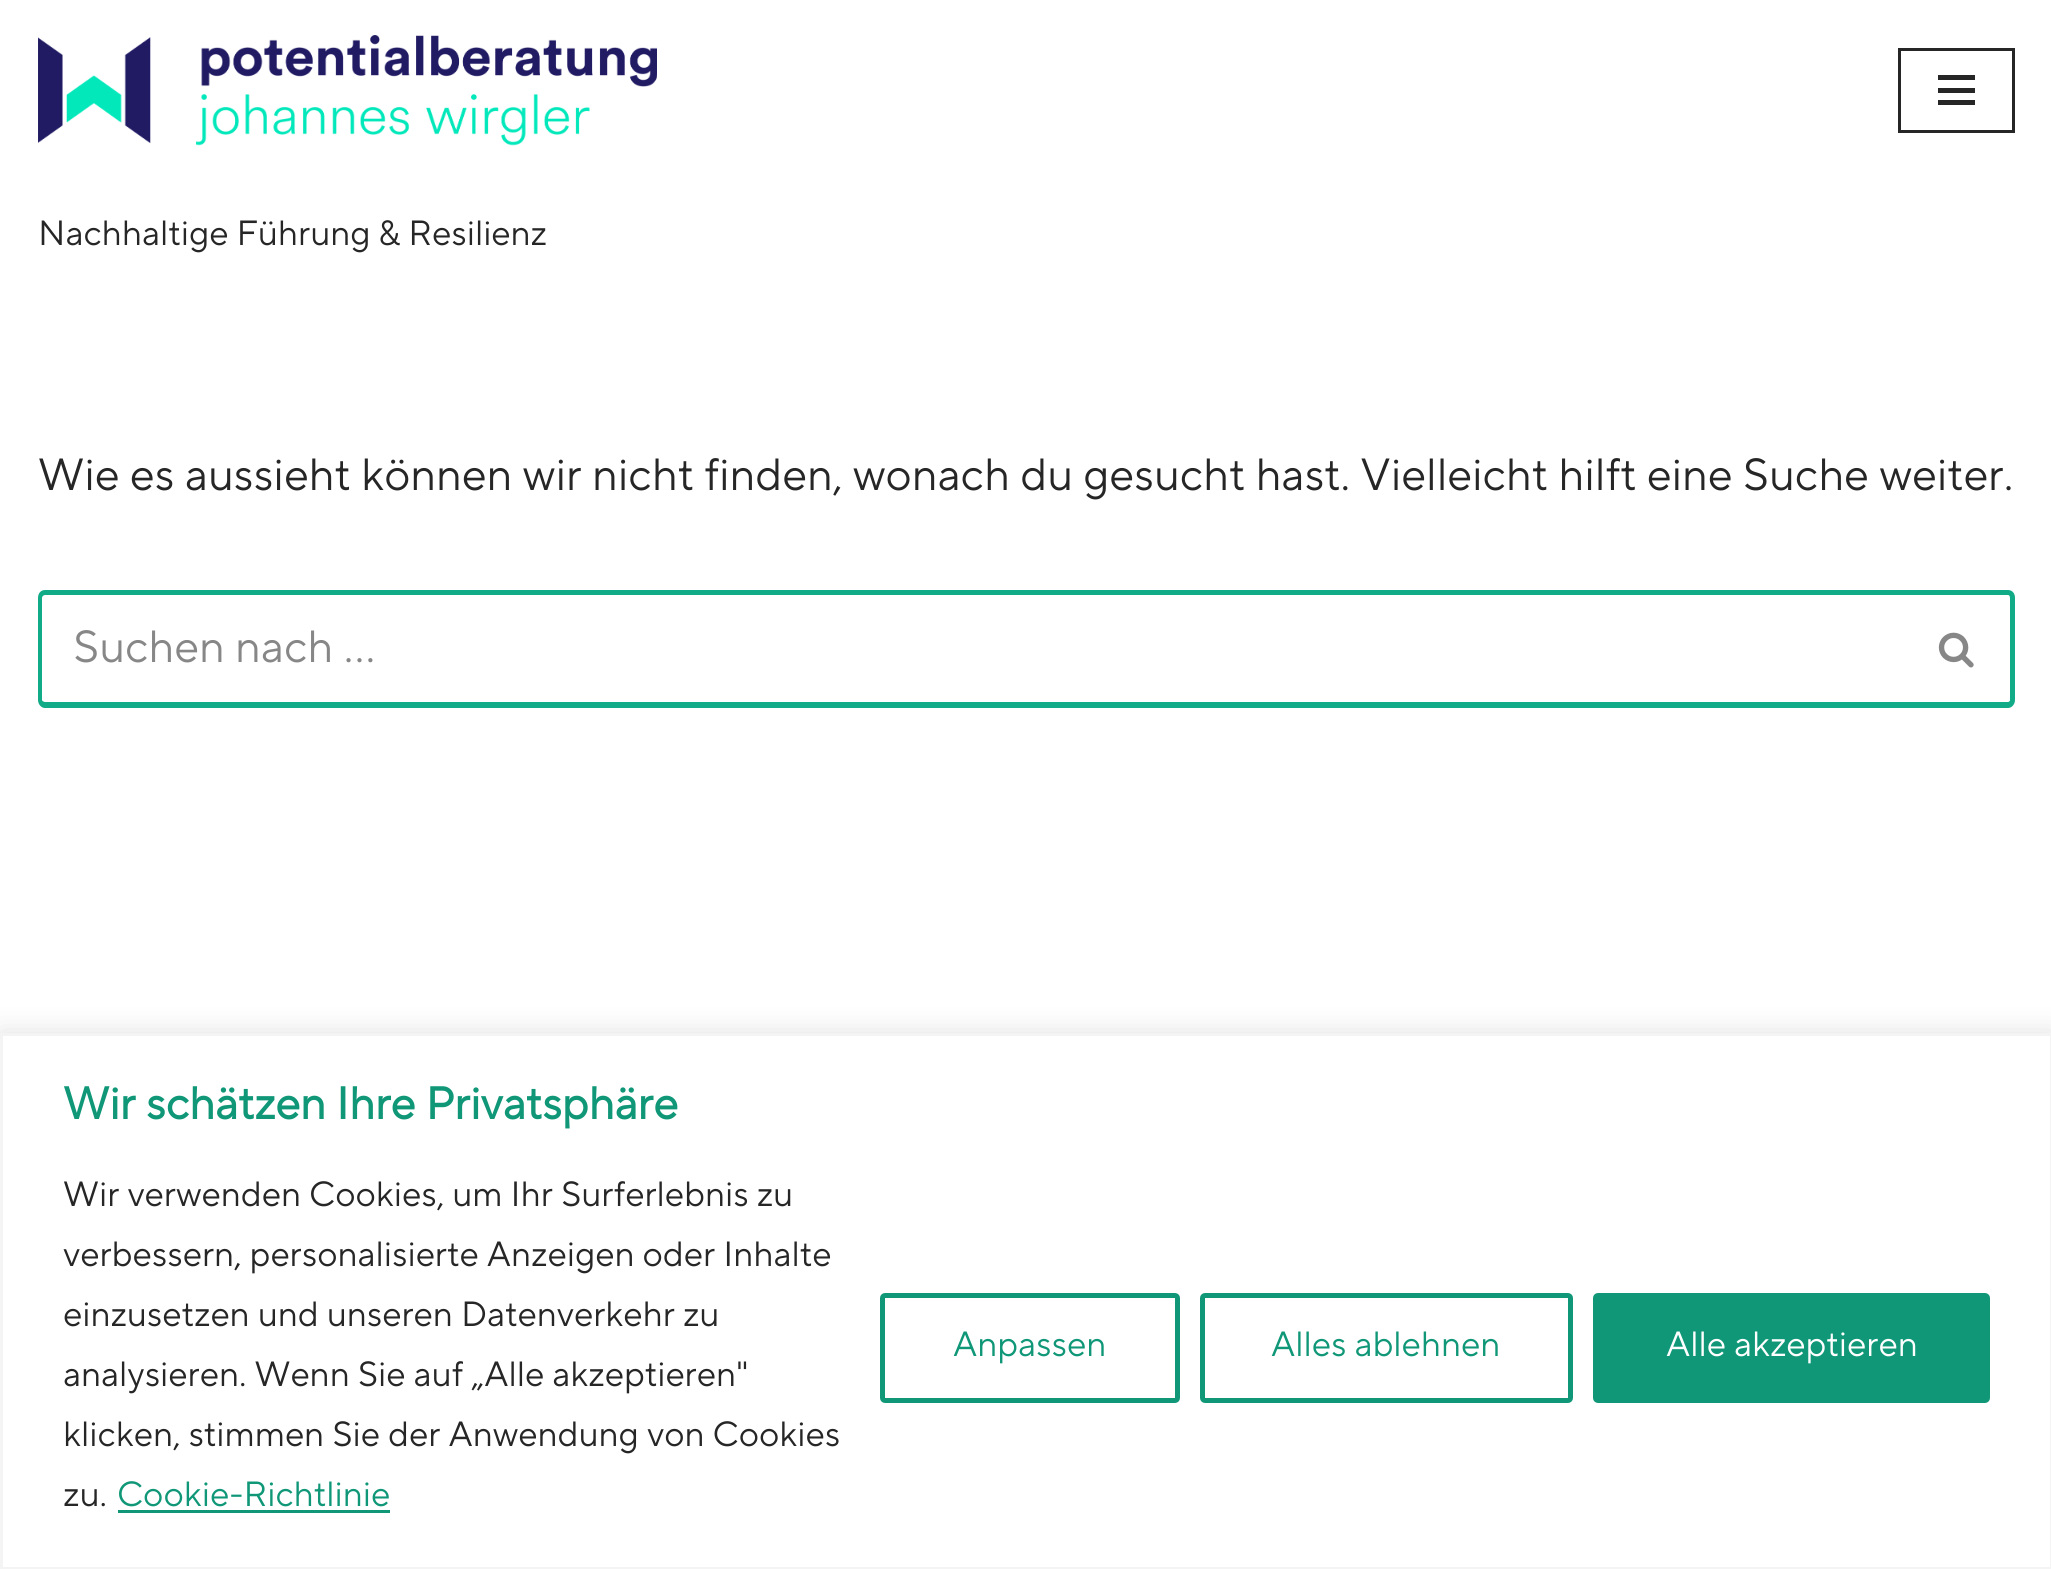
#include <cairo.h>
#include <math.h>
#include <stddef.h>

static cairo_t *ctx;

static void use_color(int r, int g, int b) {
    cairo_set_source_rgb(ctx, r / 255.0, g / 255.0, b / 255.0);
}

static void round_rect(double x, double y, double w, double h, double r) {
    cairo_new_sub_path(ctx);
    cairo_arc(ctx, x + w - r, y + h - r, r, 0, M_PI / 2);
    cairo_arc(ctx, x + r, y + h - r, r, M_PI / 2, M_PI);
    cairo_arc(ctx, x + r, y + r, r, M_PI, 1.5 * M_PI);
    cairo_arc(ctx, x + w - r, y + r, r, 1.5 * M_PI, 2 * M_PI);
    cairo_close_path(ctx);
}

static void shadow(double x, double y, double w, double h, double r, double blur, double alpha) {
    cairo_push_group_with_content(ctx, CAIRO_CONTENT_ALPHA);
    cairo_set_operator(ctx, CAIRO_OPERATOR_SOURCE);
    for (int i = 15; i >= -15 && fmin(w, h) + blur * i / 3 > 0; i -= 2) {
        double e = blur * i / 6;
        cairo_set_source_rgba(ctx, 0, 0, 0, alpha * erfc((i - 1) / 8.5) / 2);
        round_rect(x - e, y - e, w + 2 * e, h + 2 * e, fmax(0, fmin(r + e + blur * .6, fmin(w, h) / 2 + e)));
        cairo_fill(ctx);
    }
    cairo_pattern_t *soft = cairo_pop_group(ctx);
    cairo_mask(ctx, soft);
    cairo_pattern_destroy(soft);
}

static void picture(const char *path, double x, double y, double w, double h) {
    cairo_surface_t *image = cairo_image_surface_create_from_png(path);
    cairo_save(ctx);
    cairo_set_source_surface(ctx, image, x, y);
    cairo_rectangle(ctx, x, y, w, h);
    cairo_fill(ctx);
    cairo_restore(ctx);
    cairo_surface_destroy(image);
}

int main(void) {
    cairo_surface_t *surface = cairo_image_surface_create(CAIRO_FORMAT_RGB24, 2051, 1569);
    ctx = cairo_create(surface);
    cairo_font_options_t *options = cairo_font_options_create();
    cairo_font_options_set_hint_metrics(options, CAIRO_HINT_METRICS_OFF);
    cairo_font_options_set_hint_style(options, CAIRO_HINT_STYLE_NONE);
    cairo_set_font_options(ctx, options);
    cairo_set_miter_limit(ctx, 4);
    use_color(255, 255, 255);
    cairo_paint(ctx);
    picture("img1.png", 38, 35, 619, 111);
    cairo_rectangle(ctx, 1899.5, 49.5, 114, 82);
    use_color(38, 38, 38);
    cairo_set_line_width(ctx, 3);
    cairo_stroke(ctx);
    cairo_rectangle(ctx, 1938, 75, 37, 5);
    cairo_fill(ctx);
    cairo_rectangle(ctx, 1938, 88, 37, 5);
    cairo_fill(ctx);
    cairo_rectangle(ctx, 1938, 100, 37, 5);
    cairo_fill(ctx);
    cairo_select_font_face(ctx, "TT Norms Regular", CAIRO_FONT_SLANT_NORMAL, CAIRO_FONT_WEIGHT_NORMAL);
    cairo_set_font_size(ctx, 35);
    cairo_move_to(ctx, 38, 245);
    cairo_show_text(ctx, "Nachhaltige Führung & Resilienz");
    cairo_set_font_size(ctx, 45);
    cairo_move_to(ctx, 38, 490);
    cairo_show_text(ctx, "Wie es aussieht können wir nicht finden, wonach du gesucht hast. Vielleicht hilft eine Suche weiter.");
    use_color(18, 171, 136);
    cairo_set_fill_rule(ctx, CAIRO_FILL_RULE_EVEN_ODD);
    cairo_new_path(ctx);
    cairo_move_to(ctx, 45, 590);
    cairo_line_to(ctx, 1902, 590);
    cairo_line_to(ctx, 1902, 708);
    cairo_line_to(ctx, 45, 708);
    cairo_curve_to(ctx, 41, 708, 38, 704, 38, 700);
    cairo_line_to(ctx, 38, 598);
    cairo_curve_to(ctx, 38, 593, 41, 590, 45, 590);
    cairo_close_path(ctx);
    cairo_move_to(ctx, 45, 595);
    cairo_line_to(ctx, 1902, 595);
    cairo_line_to(ctx, 1902, 702);
    cairo_line_to(ctx, 45, 702);
    cairo_curve_to(ctx, 44, 702, 42, 701, 42, 700);
    cairo_line_to(ctx, 42, 598);
    cairo_curve_to(ctx, 42, 596, 44, 595, 45, 595);
    cairo_close_path(ctx);
    cairo_fill(ctx);
    use_color(135, 135, 135);
    cairo_move_to(ctx, 73, 662);
    cairo_show_text(ctx, "Suchen nach …");
    use_color(18, 171, 136);
    cairo_new_path(ctx);
    cairo_move_to(ctx, 1902, 590);
    cairo_line_to(ctx, 2008, 590);
    cairo_curve_to(ctx, 2012, 590, 2015, 593, 2015, 598);
    cairo_line_to(ctx, 2015, 700);
    cairo_curve_to(ctx, 2015, 704, 2012, 708, 2008, 708);
    cairo_line_to(ctx, 1902, 708);
    cairo_close_path(ctx);
    cairo_move_to(ctx, 1902, 595);
    cairo_line_to(ctx, 2008, 595);
    cairo_curve_to(ctx, 2009, 595, 2010, 596, 2010, 598);
    cairo_line_to(ctx, 2010, 700);
    cairo_curve_to(ctx, 2010, 701, 2009, 702, 2008, 702);
    cairo_line_to(ctx, 1902, 702);
    cairo_close_path(ctx);
    cairo_fill(ctx);
    picture("img2.png", 1938, 632, 36, 36);
    use_color(172, 171, 171);
    shadow(0, 1030, 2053, 538, 0, 12.5, 0.3);
    use_color(255, 255, 255);
    cairo_rectangle(ctx, 1.5, 1034.5, 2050, 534);
    cairo_fill_preserve(ctx);
    use_color(244, 244, 244);
    cairo_stroke(ctx);
    cairo_select_font_face(ctx, "TT Norms Regular", CAIRO_FONT_SLANT_NORMAL, CAIRO_FONT_WEIGHT_BOLD);
    use_color(16, 151, 120);
    cairo_move_to(ctx, 63, 1119);
    cairo_show_text(ctx, "Wir schätzen Ihre Privatsphäre");
    cairo_select_font_face(ctx, "TT Norms Regular", CAIRO_FONT_SLANT_NORMAL, CAIRO_FONT_WEIGHT_NORMAL);
    cairo_set_font_size(ctx, 35);
    use_color(38, 38, 38);
    cairo_move_to(ctx, 63, 1206);
    cairo_show_text(ctx, "Wir verwenden Cookies, um Ihr Surferlebnis zu");
    cairo_move_to(ctx, 63, 1266);
    cairo_show_text(ctx, "verbessern, personalisierte Anzeigen oder Inhalte");
    cairo_move_to(ctx, 63, 1326);
    cairo_show_text(ctx, "einzusetzen und unseren Datenverkehr zu");
    cairo_move_to(ctx, 63, 1386);
    cairo_show_text(ctx, "analysieren. Wenn Sie auf „Alle akzeptieren\"");
    cairo_move_to(ctx, 63, 1446);
    cairo_show_text(ctx, "klicken, stimmen Sie der Anwendung von Cookies");
    cairo_move_to(ctx, 63, 1506);
    cairo_show_text(ctx, "zu.");
    use_color(16, 151, 120);
    cairo_move_to(ctx, 117, 1506);
    cairo_show_text(ctx, "Cookie-Richtlinie");
    cairo_rectangle(ctx, 118, 1510, 272, 3);
    cairo_fill(ctx);
    round_rect(882.5, 1295.5, 295, 105, 2.5);
    cairo_set_line_width(ctx, 5);
    cairo_stroke(ctx);
    cairo_move_to(ctx, 953, 1356);
    cairo_show_text(ctx, "Anpassen");
    round_rect(1202.5, 1295.5, 368, 105, 2.5);
    cairo_stroke(ctx);
    cairo_move_to(ctx, 1271, 1356);
    cairo_show_text(ctx, "Alles ablehnen");
    round_rect(1595.5, 1295.5, 392, 105, 2.5);
    cairo_fill_preserve(ctx);
    cairo_stroke(ctx);
    use_color(255, 255, 255);
    cairo_move_to(ctx, 1666, 1356);
    cairo_show_text(ctx, "Alle akzeptieren");
    cairo_surface_write_to_png(surface, "result.png");
    cairo_font_options_destroy(options);
    cairo_destroy(ctx);
    cairo_surface_destroy(surface);
    return 0;
}
